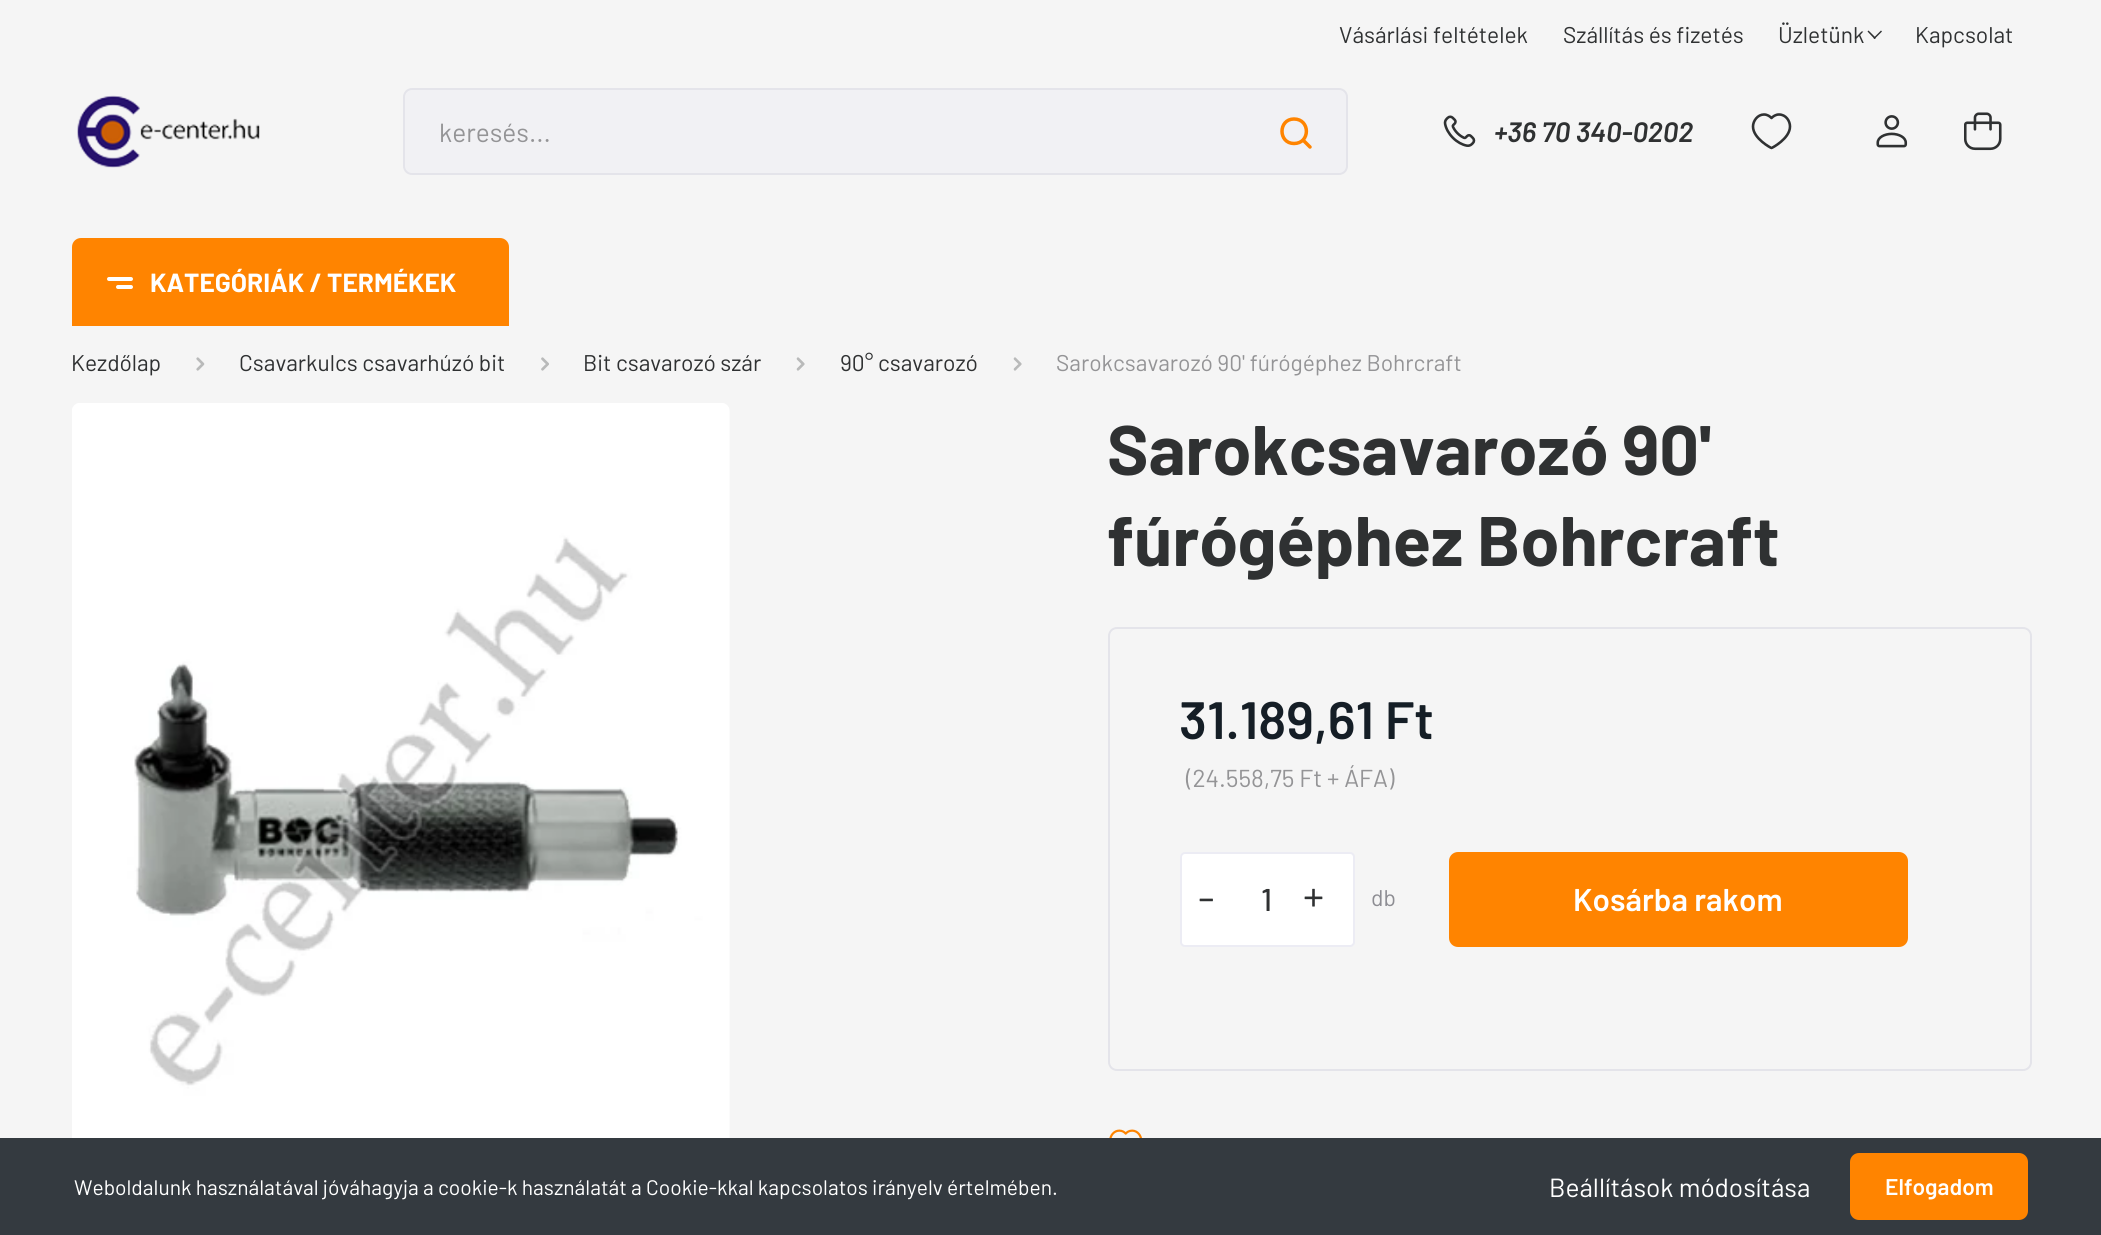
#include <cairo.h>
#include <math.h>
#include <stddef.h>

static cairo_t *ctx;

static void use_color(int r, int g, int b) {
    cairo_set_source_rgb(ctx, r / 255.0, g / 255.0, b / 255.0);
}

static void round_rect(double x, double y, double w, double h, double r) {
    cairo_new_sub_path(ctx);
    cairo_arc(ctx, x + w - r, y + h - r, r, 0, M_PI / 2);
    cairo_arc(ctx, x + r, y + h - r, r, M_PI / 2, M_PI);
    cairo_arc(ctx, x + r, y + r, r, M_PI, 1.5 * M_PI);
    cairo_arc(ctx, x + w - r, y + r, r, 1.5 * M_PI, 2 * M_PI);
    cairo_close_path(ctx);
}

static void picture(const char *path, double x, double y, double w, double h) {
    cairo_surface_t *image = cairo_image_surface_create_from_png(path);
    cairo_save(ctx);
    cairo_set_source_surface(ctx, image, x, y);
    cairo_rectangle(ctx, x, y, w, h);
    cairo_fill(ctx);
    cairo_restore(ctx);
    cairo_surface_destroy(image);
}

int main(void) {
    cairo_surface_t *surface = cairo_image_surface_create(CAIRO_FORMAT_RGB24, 2101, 1235);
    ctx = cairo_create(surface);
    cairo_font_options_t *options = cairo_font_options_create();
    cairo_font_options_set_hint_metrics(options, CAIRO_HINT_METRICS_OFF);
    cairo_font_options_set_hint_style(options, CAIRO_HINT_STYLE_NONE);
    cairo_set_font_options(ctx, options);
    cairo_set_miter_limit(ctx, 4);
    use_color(245, 245, 245);
    cairo_paint(ctx);
    cairo_select_font_face(ctx, "Barlow", CAIRO_FONT_SLANT_NORMAL, CAIRO_FONT_WEIGHT_NORMAL);
    cairo_set_font_size(ctx, 22.75);
    use_color(47, 49, 50);
    cairo_move_to(ctx, 1339, 43);
    cairo_show_text(ctx, "Vásárlási feltételek");
    cairo_move_to(ctx, 1563, 43);
    cairo_show_text(ctx, "Szállítás és fizetés");
    cairo_move_to(ctx, 1778, 43);
    cairo_show_text(ctx, "Üzletünk");
    cairo_new_path(ctx);
    cairo_move_to(ctx, 1881, 30.5);
    cairo_line_to(ctx, 1882, 31.5);
    cairo_line_to(ctx, 1874.5, 39);
    cairo_line_to(ctx, 1873.5, 38);
    cairo_close_path(ctx);
    cairo_fill(ctx);
    cairo_new_path(ctx);
    cairo_move_to(ctx, 1868.5, 30.5);
    cairo_line_to(ctx, 1876, 38);
    cairo_line_to(ctx, 1874.5, 39);
    cairo_line_to(ctx, 1867.5, 31.5);
    cairo_close_path(ctx);
    cairo_fill(ctx);
    cairo_move_to(ctx, 1915, 43);
    cairo_show_text(ctx, "Kapcsolat");
    picture("img1.png", 77, 95, 183, 73);
    use_color(241, 241, 244);
    round_rect(404, 89, 943, 85, 8);
    cairo_fill_preserve(ctx);
    use_color(228, 228, 234);
    cairo_stroke(ctx);
    cairo_set_font_size(ctx, 26.25);
    use_color(148, 148, 150);
    cairo_move_to(ctx, 439, 142);
    cairo_show_text(ctx, "keresés...");
    cairo_new_path(ctx);
    cairo_move_to(ctx, 1310, 147);
    cairo_line_to(ctx, 1303, 140);
    cairo_move_to(ctx, 1294, 143.5);
    cairo_curve_to(ctx, 1278, 143.5, 1278, 119, 1294, 119);
    cairo_curve_to(ctx, 1310.5, 119, 1310.5, 143.5, 1294, 143.5);
    cairo_close_path(ctx);
    use_color(255, 132, 0);
    cairo_set_line_width(ctx, 3.5);
    cairo_set_line_cap(ctx, CAIRO_LINE_CAP_ROUND);
    cairo_set_line_join(ctx, CAIRO_LINE_JOIN_ROUND);
    cairo_stroke(ctx);
    picture("img2.png", 1443, 115, 33, 32);
    cairo_select_font_face(ctx, "Barlow SemiBold", CAIRO_FONT_SLANT_ITALIC, CAIRO_FONT_WEIGHT_NORMAL);
    cairo_set_font_size(ctx, 28);
    use_color(47, 49, 50);
    cairo_move_to(ctx, 1494, 142);
    cairo_show_text(ctx, "+36 70 340-0202");
    cairo_new_path(ctx);
    cairo_move_to(ctx, 1779, 114.5);
    cairo_curve_to(ctx, 1786, 114.5, 1790, 121, 1790, 126.5);
    cairo_curve_to(ctx, 1790, 138.5, 1772, 148, 1771.5, 148);
    cairo_curve_to(ctx, 1771, 148, 1753, 138.5, 1753, 126.5);
    cairo_curve_to(ctx, 1753, 121, 1757.5, 114.5, 1764, 114.5);
    cairo_curve_to(ctx, 1767.5, 114.5, 1770, 116.5, 1771.5, 118);
    cairo_curve_to(ctx, 1773, 116.5, 1775.5, 114.5, 1779, 114.5);
    cairo_close_path(ctx);
    cairo_set_line_width(ctx, 2.6);
    cairo_stroke(ctx);
    picture("img3.png", 1876, 115, 32, 33);
    picture("img4.png", 1964, 112, 38, 39);
    use_color(255, 132, 0);
    cairo_new_path(ctx);
    cairo_move_to(ctx, 81, 238);
    cairo_line_to(ctx, 500, 238);
    cairo_curve_to(ctx, 505, 238, 509, 242, 509, 247);
    cairo_line_to(ctx, 509, 326);
    cairo_line_to(ctx, 72, 326);
    cairo_line_to(ctx, 72, 247);
    cairo_curve_to(ctx, 72, 242, 76, 238, 81, 238);
    cairo_close_path(ctx);
    cairo_fill(ctx);
    use_color(255, 255, 255);
    round_rect(107, 277, 26, 4, 2);
    cairo_fill(ctx);
    round_rect(116, 285, 17, 4, 2);
    cairo_fill(ctx);
    cairo_select_font_face(ctx, "Barlow", CAIRO_FONT_SLANT_NORMAL, CAIRO_FONT_WEIGHT_BOLD);
    cairo_set_font_size(ctx, 26.25);
    cairo_move_to(ctx, 150, 292);
    cairo_show_text(ctx, "KATEGÓRIÁK / TERMÉKEK");
    cairo_select_font_face(ctx, "Barlow", CAIRO_FONT_SLANT_NORMAL, CAIRO_FONT_WEIGHT_NORMAL);
    cairo_set_font_size(ctx, 22.75);
    use_color(47, 49, 50);
    cairo_move_to(ctx, 71, 371);
    cairo_show_text(ctx, "Kezdőlap");
    picture("img5.png", 196, 357, 9, 14);
    cairo_move_to(ctx, 239, 371);
    cairo_show_text(ctx, "Csavarkulcs csavarhúzó bit");
    picture("img6.png", 541, 357, 8, 14);
    cairo_move_to(ctx, 583, 371);
    cairo_show_text(ctx, "Bit csavarozó szár");
    picture("img7.png", 796, 357, 9, 14);
    cairo_move_to(ctx, 840, 371);
    cairo_show_text(ctx, "90° csavarozó");
    picture("img8.png", 1013, 357, 9, 14);
    use_color(148, 148, 150);
    cairo_move_to(ctx, 1056, 371);
    cairo_show_text(ctx, "Sarokcsavarozó 90' fúrógéphez Bohrcraft");
    picture("img9.png", 72, 403, 658, 735);
    cairo_select_font_face(ctx, "Barlow", CAIRO_FONT_SLANT_NORMAL, CAIRO_FONT_WEIGHT_BOLD);
    cairo_set_font_size(ctx, 70);
    use_color(47, 49, 50);
    cairo_move_to(ctx, 1107, 475);
    cairo_show_text(ctx, "Sarokcsavarozó 90'");
    cairo_move_to(ctx, 1107, 566);
    cairo_show_text(ctx, "fúrógéphez Bohrcraft");
    round_rect(1109, 628, 922, 442, 8);
    use_color(228, 228, 234);
    cairo_set_line_width(ctx, 2);
    cairo_set_line_cap(ctx, CAIRO_LINE_CAP_BUTT);
    cairo_set_line_join(ctx, CAIRO_LINE_JOIN_MITER);
    cairo_stroke(ctx);
    cairo_select_font_face(ctx, "Barlow SemiBold", CAIRO_FONT_SLANT_NORMAL, CAIRO_FONT_WEIGHT_NORMAL);
    cairo_set_font_size(ctx, 52.5);
    use_color(21, 30, 38);
    cairo_move_to(ctx, 1179, 739);
    cairo_show_text(ctx, "31.189,61 Ft");
    cairo_select_font_face(ctx, "Barlow", CAIRO_FONT_SLANT_NORMAL, CAIRO_FONT_WEIGHT_NORMAL);
    cairo_set_font_size(ctx, 24.5);
    use_color(148, 148, 150);
    cairo_move_to(ctx, 1186, 787);
    cairo_show_text(ctx, "(24.558,75 Ft + ÁFA)");
    use_color(255, 255, 255);
    round_rect(1181, 853, 173, 93, 4);
    cairo_fill_preserve(ctx);
    use_color(236, 236, 244);
    cairo_stroke(ctx);
    cairo_set_font_size(ctx, 42);
    use_color(47, 49, 50);
    cairo_move_to(ctx, 1198, 913);
    cairo_show_text(ctx, "-");
    cairo_select_font_face(ctx, "Barlow Medium", CAIRO_FONT_SLANT_NORMAL, CAIRO_FONT_WEIGHT_NORMAL);
    cairo_set_font_size(ctx, 31.5);
    cairo_move_to(ctx, 1261, 911);
    cairo_show_text(ctx, "1");
    cairo_select_font_face(ctx, "Barlow", CAIRO_FONT_SLANT_NORMAL, CAIRO_FONT_WEIGHT_NORMAL);
    cairo_set_font_size(ctx, 42);
    cairo_move_to(ctx, 1303, 911);
    cairo_show_text(ctx, "+");
    cairo_set_font_size(ctx, 22.75);
    use_color(141, 141, 147);
    cairo_move_to(ctx, 1371, 906);
    cairo_show_text(ctx, "db");
    use_color(255, 132, 0);
    round_rect(1449, 852, 459, 95, 9);
    cairo_fill(ctx);
    cairo_select_font_face(ctx, "Barlow SemiBold", CAIRO_FONT_SLANT_NORMAL, CAIRO_FONT_WEIGHT_NORMAL);
    cairo_set_font_size(ctx, 31.5);
    use_color(255, 255, 255);
    cairo_move_to(ctx, 1573, 911);
    cairo_show_text(ctx, "Kosárba rakom");
    picture("img10.png", 1109, 1129, 33, 9);
    use_color(52, 58, 64);
    cairo_rectangle(ctx, 0, 1138, 2101, 97);
    cairo_fill(ctx);
    cairo_select_font_face(ctx, "Barlow", CAIRO_FONT_SLANT_NORMAL, CAIRO_FONT_WEIGHT_NORMAL);
    cairo_set_font_size(ctx, 21);
    use_color(255, 255, 255);
    cairo_move_to(ctx, 74, 1195);
    cairo_show_text(ctx, "Weboldalunk használatával jóváhagyja a cookie-k használatát a Cookie-kkal kapcsolatos irányelv értelmében.");
    cairo_set_font_size(ctx, 26.25);
    cairo_move_to(ctx, 1549, 1197);
    cairo_show_text(ctx, "Beállítások módosítása");
    use_color(255, 132, 0);
    round_rect(1850, 1153, 178, 67, 9);
    cairo_fill(ctx);
    cairo_select_font_face(ctx, "Barlow SemiBold", CAIRO_FONT_SLANT_NORMAL, CAIRO_FONT_WEIGHT_NORMAL);
    cairo_set_font_size(ctx, 22.75);
    use_color(255, 255, 255);
    cairo_move_to(ctx, 1885, 1195);
    cairo_show_text(ctx, "Elfogadom");
    cairo_surface_write_to_png(surface, "result.png");
    cairo_font_options_destroy(options);
    cairo_destroy(ctx);
    cairo_surface_destroy(surface);
    return 0;
}
